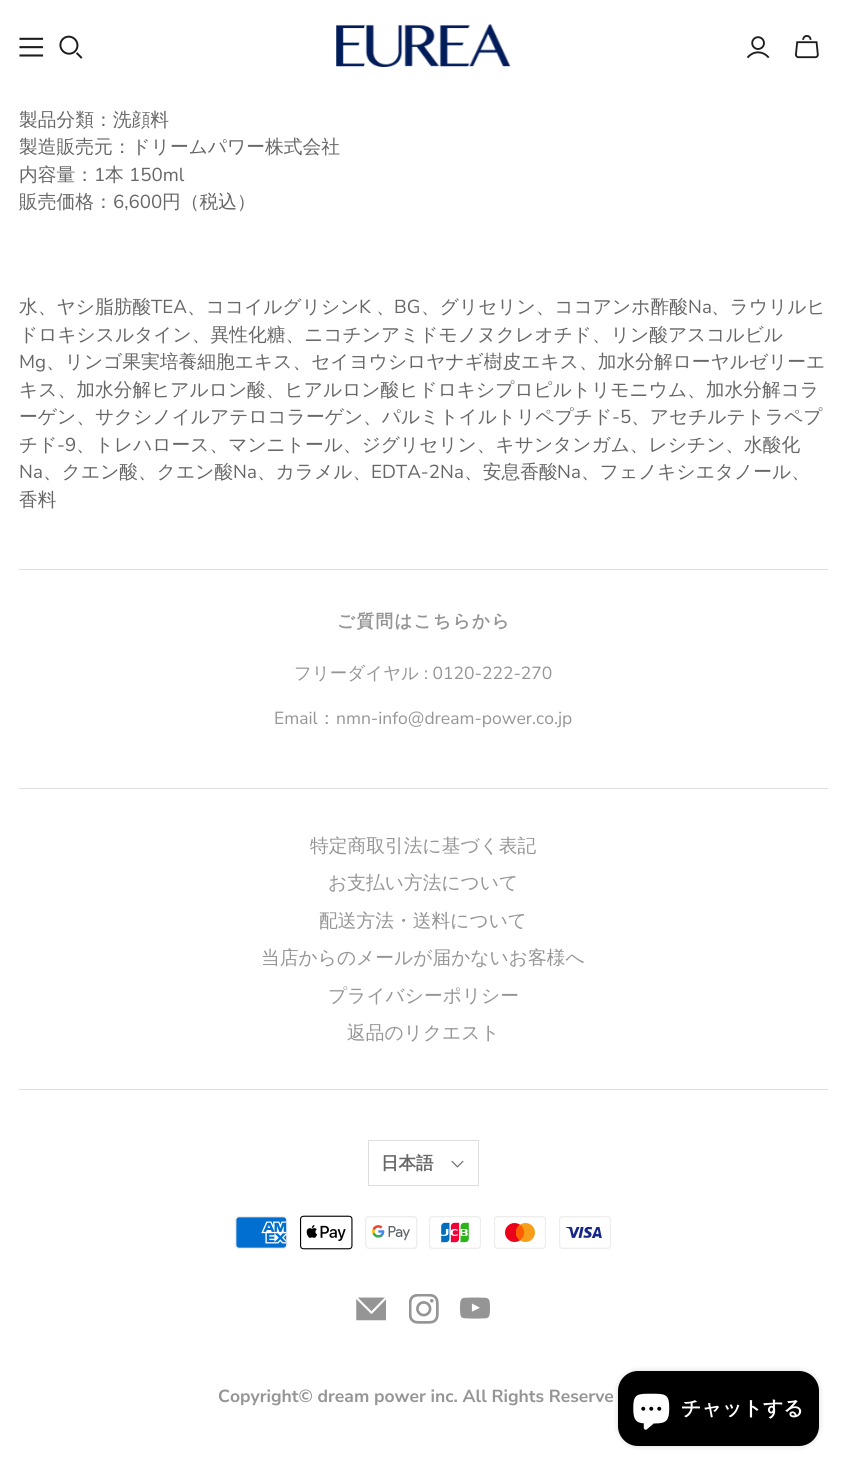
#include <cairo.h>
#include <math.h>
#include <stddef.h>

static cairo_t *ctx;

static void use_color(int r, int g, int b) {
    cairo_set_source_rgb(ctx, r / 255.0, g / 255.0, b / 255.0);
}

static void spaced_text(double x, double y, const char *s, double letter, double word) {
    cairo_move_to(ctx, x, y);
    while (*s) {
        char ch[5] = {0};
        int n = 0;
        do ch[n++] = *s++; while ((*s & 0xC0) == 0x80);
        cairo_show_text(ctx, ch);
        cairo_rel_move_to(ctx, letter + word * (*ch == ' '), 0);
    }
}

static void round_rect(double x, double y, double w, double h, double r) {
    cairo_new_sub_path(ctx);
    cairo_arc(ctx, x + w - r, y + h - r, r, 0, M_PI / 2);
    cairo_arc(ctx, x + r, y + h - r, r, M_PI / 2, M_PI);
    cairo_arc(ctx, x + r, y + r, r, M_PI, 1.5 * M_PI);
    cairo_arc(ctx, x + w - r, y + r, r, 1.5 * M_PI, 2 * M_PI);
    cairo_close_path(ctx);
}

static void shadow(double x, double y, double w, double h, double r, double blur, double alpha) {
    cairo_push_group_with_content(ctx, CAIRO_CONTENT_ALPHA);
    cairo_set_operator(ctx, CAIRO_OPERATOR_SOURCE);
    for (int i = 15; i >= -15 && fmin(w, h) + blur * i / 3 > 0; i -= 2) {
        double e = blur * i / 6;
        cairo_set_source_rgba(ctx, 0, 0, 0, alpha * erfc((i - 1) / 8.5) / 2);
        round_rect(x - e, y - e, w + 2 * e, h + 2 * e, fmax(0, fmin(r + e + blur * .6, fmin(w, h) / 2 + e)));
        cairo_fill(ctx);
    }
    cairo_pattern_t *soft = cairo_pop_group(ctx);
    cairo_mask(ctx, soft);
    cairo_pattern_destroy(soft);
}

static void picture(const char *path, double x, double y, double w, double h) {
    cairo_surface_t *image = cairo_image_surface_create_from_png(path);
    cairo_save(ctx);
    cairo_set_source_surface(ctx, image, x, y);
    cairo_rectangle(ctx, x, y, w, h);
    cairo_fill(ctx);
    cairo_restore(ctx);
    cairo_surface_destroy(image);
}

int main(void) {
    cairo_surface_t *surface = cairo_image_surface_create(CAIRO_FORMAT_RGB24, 846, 1472);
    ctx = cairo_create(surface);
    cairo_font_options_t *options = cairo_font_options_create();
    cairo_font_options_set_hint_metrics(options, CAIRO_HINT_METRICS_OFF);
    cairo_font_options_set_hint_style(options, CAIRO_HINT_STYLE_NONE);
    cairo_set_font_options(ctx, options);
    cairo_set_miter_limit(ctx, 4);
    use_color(255, 255, 255);
    cairo_paint(ctx);
    picture("img1.png", 336, 24, 175, 43);
    picture("img2.png", 19, 37, 25, 20);
    picture("img3.png", 59, 35, 24, 24);
    picture("img4.png", 746, 36, 24, 23);
    picture("img5.png", 795, 35, 24, 24);
    cairo_select_font_face(ctx, "WenQuanYi Zen Hei Medium", CAIRO_FONT_SLANT_NORMAL, CAIRO_FONT_WEIGHT_NORMAL);
    cairo_set_font_size(ctx, 18.75);
    use_color(103, 103, 103);
    cairo_move_to(ctx, 19, 126);
    cairo_show_text(ctx, "製品分類：洗顔料");
    cairo_move_to(ctx, 19, 153);
    cairo_show_text(ctx, "製造販売元：ドリームパワー株式会社");
    cairo_move_to(ctx, 19, 181);
    cairo_show_text(ctx, "内容量：");
    cairo_select_font_face(ctx, "Nunito Sans", CAIRO_FONT_SLANT_NORMAL, CAIRO_FONT_WEIGHT_NORMAL);
    cairo_move_to(ctx, 94, 181);
    cairo_show_text(ctx, "1");
    cairo_select_font_face(ctx, "WenQuanYi Zen Hei Medium", CAIRO_FONT_SLANT_NORMAL, CAIRO_FONT_WEIGHT_NORMAL);
    cairo_move_to(ctx, 105, 181);
    cairo_show_text(ctx, "本");
    cairo_select_font_face(ctx, "Nunito Sans", CAIRO_FONT_SLANT_NORMAL, CAIRO_FONT_WEIGHT_NORMAL);
    cairo_move_to(ctx, 129, 181);
    cairo_show_text(ctx, "150ml");
    cairo_select_font_face(ctx, "WenQuanYi Zen Hei Medium", CAIRO_FONT_SLANT_NORMAL, CAIRO_FONT_WEIGHT_NORMAL);
    cairo_move_to(ctx, 19, 208);
    cairo_show_text(ctx, "販売価格：");
    cairo_select_font_face(ctx, "Nunito Sans", CAIRO_FONT_SLANT_NORMAL, CAIRO_FONT_WEIGHT_NORMAL);
    cairo_move_to(ctx, 113, 208);
    cairo_show_text(ctx, "6,600");
    cairo_select_font_face(ctx, "WenQuanYi Zen Hei Medium", CAIRO_FONT_SLANT_NORMAL, CAIRO_FONT_WEIGHT_NORMAL);
    cairo_move_to(ctx, 162, 208);
    cairo_show_text(ctx, "円（税込）");
    cairo_move_to(ctx, 19, 313);
    cairo_show_text(ctx, "水、ヤシ脂肪酸");
    cairo_select_font_face(ctx, "Nunito Sans", CAIRO_FONT_SLANT_NORMAL, CAIRO_FONT_WEIGHT_NORMAL);
    cairo_move_to(ctx, 151, 313);
    cairo_show_text(ctx, "TEA");
    cairo_select_font_face(ctx, "WenQuanYi Zen Hei Medium", CAIRO_FONT_SLANT_NORMAL, CAIRO_FONT_WEIGHT_NORMAL);
    cairo_move_to(ctx, 187, 313);
    cairo_show_text(ctx, "、ココイルグリシン");
    cairo_select_font_face(ctx, "Nunito Sans", CAIRO_FONT_SLANT_NORMAL, CAIRO_FONT_WEIGHT_NORMAL);
    cairo_move_to(ctx, 359, 313);
    cairo_show_text(ctx, "K");
    cairo_select_font_face(ctx, "WenQuanYi Zen Hei Medium", CAIRO_FONT_SLANT_NORMAL, CAIRO_FONT_WEIGHT_NORMAL);
    cairo_move_to(ctx, 376, 313);
    cairo_show_text(ctx, "、");
    cairo_select_font_face(ctx, "Nunito Sans", CAIRO_FONT_SLANT_NORMAL, CAIRO_FONT_WEIGHT_NORMAL);
    cairo_move_to(ctx, 394, 313);
    cairo_show_text(ctx, "BG");
    cairo_select_font_face(ctx, "WenQuanYi Zen Hei Medium", CAIRO_FONT_SLANT_NORMAL, CAIRO_FONT_WEIGHT_NORMAL);
    cairo_move_to(ctx, 421, 313);
    cairo_show_text(ctx, "、グリセリン、ココアンホ酢酸");
    cairo_select_font_face(ctx, "Nunito Sans", CAIRO_FONT_SLANT_NORMAL, CAIRO_FONT_WEIGHT_NORMAL);
    cairo_move_to(ctx, 688, 313);
    cairo_show_text(ctx, "Na");
    cairo_select_font_face(ctx, "WenQuanYi Zen Hei Medium", CAIRO_FONT_SLANT_NORMAL, CAIRO_FONT_WEIGHT_NORMAL);
    cairo_move_to(ctx, 711, 313);
    cairo_show_text(ctx, "、ラウリルヒ");
    cairo_move_to(ctx, 19, 341);
    cairo_show_text(ctx, "ドロキシスルタイン、異性化糖、ニコチンアミドモノヌクレオチド、リン酸アスコルビル");
    cairo_select_font_face(ctx, "Nunito Sans", CAIRO_FONT_SLANT_NORMAL, CAIRO_FONT_WEIGHT_NORMAL);
    cairo_move_to(ctx, 19, 368);
    cairo_show_text(ctx, "Mg");
    cairo_select_font_face(ctx, "WenQuanYi Zen Hei Medium", CAIRO_FONT_SLANT_NORMAL, CAIRO_FONT_WEIGHT_NORMAL);
    cairo_move_to(ctx, 46, 368);
    cairo_show_text(ctx, "、リンゴ果実培養細胞エキス、セイヨウシロヤナギ樹皮エキス、加水分解ローヤルゼリーエ");
    cairo_move_to(ctx, 19, 396);
    cairo_show_text(ctx, "キス、加水分解ヒアルロン酸、ヒアルロン酸ヒドロキシプロピルトリモニウム、加水分解コラ");
    cairo_move_to(ctx, 19, 423);
    cairo_show_text(ctx, "ーゲン、サクシノイルアテロコラーゲン、パルミトイルトリペプチド");
    cairo_select_font_face(ctx, "Nunito Sans", CAIRO_FONT_SLANT_NORMAL, CAIRO_FONT_WEIGHT_NORMAL);
    cairo_move_to(ctx, 612, 423);
    cairo_show_text(ctx, "-5");
    cairo_select_font_face(ctx, "WenQuanYi Zen Hei Medium", CAIRO_FONT_SLANT_NORMAL, CAIRO_FONT_WEIGHT_NORMAL);
    cairo_move_to(ctx, 631, 423);
    cairo_show_text(ctx, "、アセチルテトラペプ");
    cairo_move_to(ctx, 19, 451);
    cairo_show_text(ctx, "チド");
    cairo_select_font_face(ctx, "Nunito Sans", CAIRO_FONT_SLANT_NORMAL, CAIRO_FONT_WEIGHT_NORMAL);
    cairo_move_to(ctx, 57, 451);
    cairo_show_text(ctx, "-9");
    cairo_select_font_face(ctx, "WenQuanYi Zen Hei Medium", CAIRO_FONT_SLANT_NORMAL, CAIRO_FONT_WEIGHT_NORMAL);
    cairo_move_to(ctx, 76, 451);
    cairo_show_text(ctx, "、トレハロース、マンニトール、ジグリセリン、キサンタンガム、レシチン、水酸化");
    cairo_select_font_face(ctx, "Nunito Sans", CAIRO_FONT_SLANT_NORMAL, CAIRO_FONT_WEIGHT_NORMAL);
    cairo_move_to(ctx, 19, 478);
    cairo_show_text(ctx, "Na");
    cairo_select_font_face(ctx, "WenQuanYi Zen Hei Medium", CAIRO_FONT_SLANT_NORMAL, CAIRO_FONT_WEIGHT_NORMAL);
    cairo_move_to(ctx, 43, 478);
    cairo_show_text(ctx, "、クエン酸、クエン酸");
    cairo_select_font_face(ctx, "Nunito Sans", CAIRO_FONT_SLANT_NORMAL, CAIRO_FONT_WEIGHT_NORMAL);
    cairo_move_to(ctx, 233, 478);
    cairo_show_text(ctx, "Na");
    cairo_select_font_face(ctx, "WenQuanYi Zen Hei Medium", CAIRO_FONT_SLANT_NORMAL, CAIRO_FONT_WEIGHT_NORMAL);
    cairo_move_to(ctx, 257, 478);
    cairo_show_text(ctx, "、カラメル、");
    cairo_select_font_face(ctx, "Nunito Sans", CAIRO_FONT_SLANT_NORMAL, CAIRO_FONT_WEIGHT_NORMAL);
    cairo_move_to(ctx, 371, 478);
    cairo_show_text(ctx, "EDTA-2Na");
    cairo_select_font_face(ctx, "WenQuanYi Zen Hei Medium", CAIRO_FONT_SLANT_NORMAL, CAIRO_FONT_WEIGHT_NORMAL);
    cairo_move_to(ctx, 464, 478);
    cairo_show_text(ctx, "、安息香酸");
    cairo_select_font_face(ctx, "Nunito Sans", CAIRO_FONT_SLANT_NORMAL, CAIRO_FONT_WEIGHT_NORMAL);
    cairo_move_to(ctx, 557, 478);
    cairo_show_text(ctx, "Na");
    cairo_select_font_face(ctx, "WenQuanYi Zen Hei Medium", CAIRO_FONT_SLANT_NORMAL, CAIRO_FONT_WEIGHT_NORMAL);
    cairo_move_to(ctx, 581, 478);
    cairo_show_text(ctx, "、フェノキシエタノール、");
    cairo_move_to(ctx, 19, 506);
    cairo_show_text(ctx, "香料");
    use_color(222, 222, 222);
    cairo_rectangle(ctx, 19, 569, 809, 1);
    cairo_fill(ctx);
    cairo_rectangle(ctx, 19, 1089, 809, 1);
    cairo_fill(ctx);
    cairo_select_font_face(ctx, "WenQuanYi Zen Hei", CAIRO_FONT_SLANT_NORMAL, CAIRO_FONT_WEIGHT_BOLD);
    cairo_set_font_size(ctx, 17.5);
    use_color(149, 149, 149);
    spaced_text(337, 627, "ご質問はこちらから", 1.5, 0);
    cairo_select_font_face(ctx, "WenQuanYi Zen Hei Medium", CAIRO_FONT_SLANT_NORMAL, CAIRO_FONT_WEIGHT_NORMAL);
    cairo_move_to(ctx, 294, 679);
    cairo_show_text(ctx, "フリーダイヤル");
    cairo_select_font_face(ctx, "Nunito Sans", CAIRO_FONT_SLANT_NORMAL, CAIRO_FONT_WEIGHT_NORMAL);
    cairo_move_to(ctx, 424, 679);
    cairo_show_text(ctx, ": 0120-222-270");
    cairo_move_to(ctx, 274, 724);
    cairo_show_text(ctx, "Email");
    cairo_select_font_face(ctx, "WenQuanYi Zen Hei Medium", CAIRO_FONT_SLANT_NORMAL, CAIRO_FONT_WEIGHT_NORMAL);
    cairo_move_to(ctx, 318, 724);
    cairo_show_text(ctx, "：");
    cairo_select_font_face(ctx, "Nunito Sans", CAIRO_FONT_SLANT_NORMAL, CAIRO_FONT_WEIGHT_NORMAL);
    cairo_move_to(ctx, 336, 724);
    cairo_show_text(ctx, "nmn-info@dream-power.co.jp");
    use_color(222, 222, 222);
    cairo_rectangle(ctx, 19, 788, 809, 1);
    cairo_fill(ctx);
    cairo_select_font_face(ctx, "WenQuanYi Zen Hei Medium", CAIRO_FONT_SLANT_NORMAL, CAIRO_FONT_WEIGHT_NORMAL);
    cairo_set_font_size(ctx, 18.75);
    use_color(149, 149, 149);
    cairo_move_to(ctx, 310, 852);
    cairo_show_text(ctx, "特定商取引法に基づく表記");
    cairo_move_to(ctx, 328, 889);
    cairo_show_text(ctx, "お支払い方法について");
    cairo_move_to(ctx, 319, 927);
    cairo_show_text(ctx, "配送方法・送料について");
    cairo_move_to(ctx, 261, 964);
    cairo_show_text(ctx, "当店からのメールが届かないお客様へ");
    cairo_move_to(ctx, 328, 1002);
    cairo_show_text(ctx, "プライバシーポリシー");
    cairo_move_to(ctx, 347, 1039);
    cairo_show_text(ctx, "返品のリクエスト");
    cairo_rectangle(ctx, 368.5, 1140.5, 110, 45);
    use_color(222, 222, 222);
    cairo_set_line_width(ctx, 1);
    cairo_stroke(ctx);
    cairo_select_font_face(ctx, "WenQuanYi Zen Hei", CAIRO_FONT_SLANT_NORMAL, CAIRO_FONT_WEIGHT_BOLD);
    cairo_set_font_size(ctx, 17.5);
    use_color(103, 103, 103);
    cairo_move_to(ctx, 381, 1169);
    cairo_show_text(ctx, "日本語");
    picture("img6.png", 451, 1160, 13, 8);
    picture("img7.png", 235, 1216, 53, 33);
    picture("img8.png", 300, 1215, 53, 35);
    picture("img9.png", 365, 1216, 53, 33);
    picture("img10.png", 429, 1216, 52, 33);
    picture("img11.png", 494, 1216, 52, 33);
    picture("img12.png", 559, 1216, 52, 33);
    picture("img13.png", 356, 1297, 30, 24);
    picture("img14.png", 409, 1294, 30, 30);
    picture("img15.png", 460, 1297, 30, 22);
    cairo_select_font_face(ctx, "Nunito Sans", CAIRO_FONT_SLANT_NORMAL, CAIRO_FONT_WEIGHT_BOLD);
    use_color(149, 149, 149);
    cairo_move_to(ctx, 218, 1402);
    cairo_show_text(ctx, "Copyright© dream power inc. All Rights Reserve");
    use_color(0, 0, 0);
    shadow(618, 1371, 201, 75, 20, 3, 0.15);
    use_color(0, 0, 0);
    round_rect(618, 1371, 201, 75, 20);
    cairo_fill(ctx);
    picture("img16.png", 633, 1393, 37, 37);
    cairo_select_font_face(ctx, "WenQuanYi Zen Hei", CAIRO_FONT_SLANT_NORMAL, CAIRO_FONT_WEIGHT_BOLD);
    cairo_set_font_size(ctx, 20);
    use_color(255, 255, 255);
    cairo_move_to(ctx, 681, 1415);
    cairo_show_text(ctx, "チャットする");
    cairo_surface_write_to_png(surface, "result.png");
    cairo_font_options_destroy(options);
    cairo_destroy(ctx);
    cairo_surface_destroy(surface);
    return 0;
}
